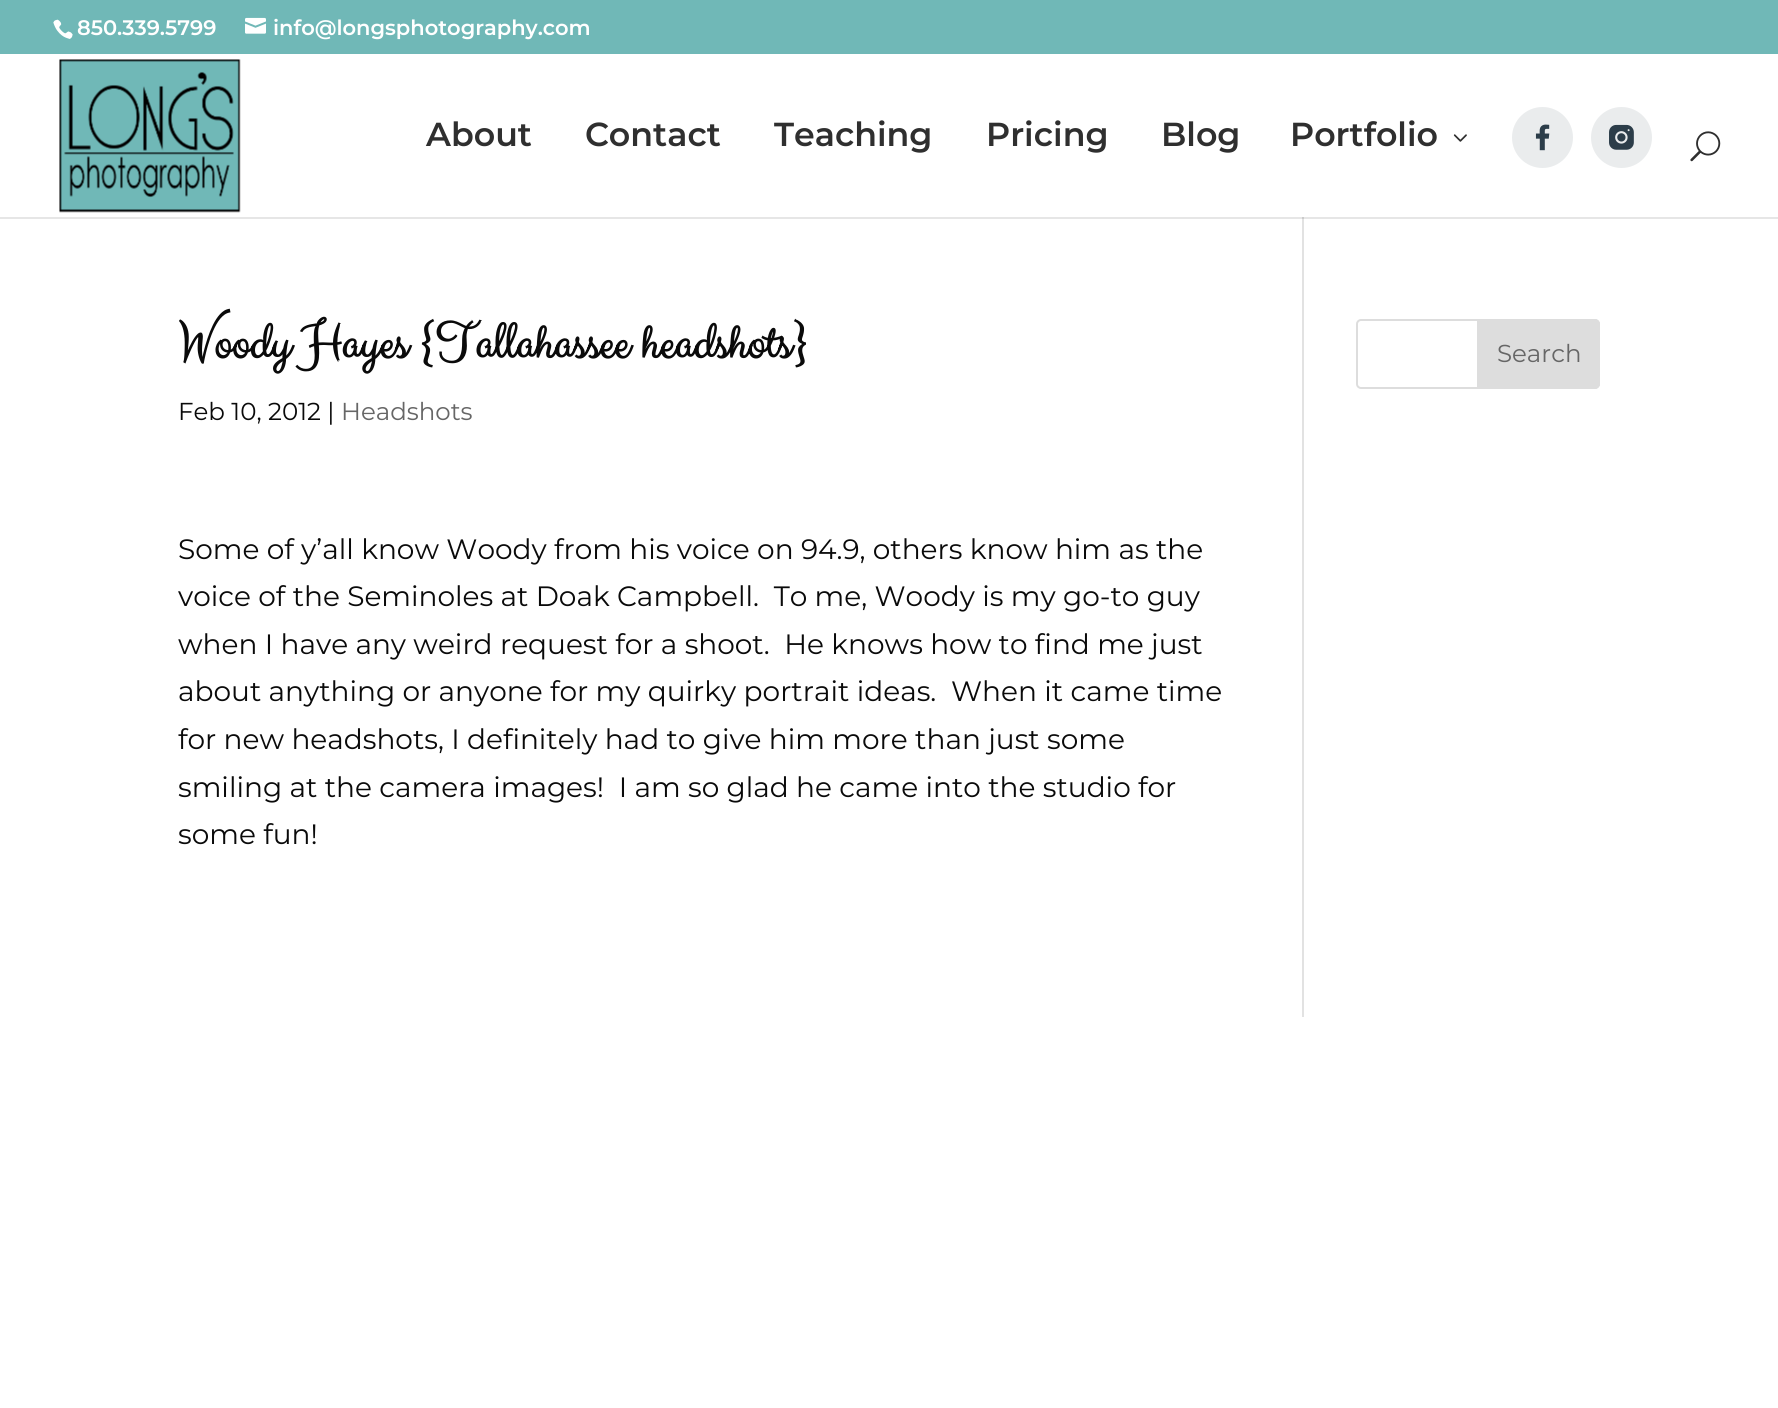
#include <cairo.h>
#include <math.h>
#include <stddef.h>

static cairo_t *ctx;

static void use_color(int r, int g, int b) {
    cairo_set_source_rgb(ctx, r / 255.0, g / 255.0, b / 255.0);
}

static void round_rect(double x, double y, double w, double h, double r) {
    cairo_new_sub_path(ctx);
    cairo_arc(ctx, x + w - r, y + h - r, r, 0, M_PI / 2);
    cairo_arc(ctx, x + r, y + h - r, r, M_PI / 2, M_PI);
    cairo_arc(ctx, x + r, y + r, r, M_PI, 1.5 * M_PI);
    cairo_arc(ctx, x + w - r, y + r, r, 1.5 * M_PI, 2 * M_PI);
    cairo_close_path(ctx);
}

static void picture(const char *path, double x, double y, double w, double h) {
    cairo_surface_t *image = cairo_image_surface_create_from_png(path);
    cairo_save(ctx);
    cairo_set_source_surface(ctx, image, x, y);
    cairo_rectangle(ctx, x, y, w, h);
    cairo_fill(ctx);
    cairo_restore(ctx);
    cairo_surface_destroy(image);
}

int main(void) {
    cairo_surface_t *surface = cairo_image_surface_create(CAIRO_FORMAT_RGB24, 1778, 1408);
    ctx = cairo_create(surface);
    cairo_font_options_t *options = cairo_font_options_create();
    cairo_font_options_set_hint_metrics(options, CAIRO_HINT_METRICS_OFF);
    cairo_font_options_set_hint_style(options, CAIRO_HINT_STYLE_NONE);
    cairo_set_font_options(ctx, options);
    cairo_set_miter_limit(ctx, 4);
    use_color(255, 255, 255);
    cairo_paint(ctx);
    use_color(230, 230, 230);
    cairo_rectangle(ctx, 0, 217, 1778, 2);
    cairo_fill(ctx);
    use_color(112, 184, 183);
    cairo_rectangle(ctx, 0, 0, 1778, 54);
    cairo_fill(ctx);
    picture("img1.png", 53, 19, 20, 20);
    cairo_select_font_face(ctx, "Montserrat SemiBold", CAIRO_FONT_SLANT_NORMAL, CAIRO_FONT_WEIGHT_NORMAL);
    cairo_set_font_size(ctx, 21);
    use_color(255, 255, 255);
    cairo_move_to(ctx, 77, 35);
    cairo_show_text(ctx, "850.339.5799");
    picture("img2.png", 245, 17, 21, 17);
    cairo_move_to(ctx, 273, 35);
    cairo_show_text(ctx, "info@longsphotography.com");
    picture("img3.png", 59, 59, 182, 154);
    cairo_set_font_size(ctx, 33.25);
    use_color(47, 47, 47);
    cairo_move_to(ctx, 426, 146);
    cairo_show_text(ctx, "About");
    cairo_move_to(ctx, 585, 146);
    cairo_show_text(ctx, "Contact");
    cairo_move_to(ctx, 774, 146);
    cairo_show_text(ctx, "Teaching");
    cairo_move_to(ctx, 986, 146);
    cairo_show_text(ctx, "Pricing");
    cairo_move_to(ctx, 1161, 146);
    cairo_show_text(ctx, "Blog");
    cairo_move_to(ctx, 1290, 146);
    cairo_show_text(ctx, "Portfolio");
    picture("img4.png", 1453, 134, 14, 8);
    use_color(234, 236, 237);
    cairo_arc(ctx, 1542.5, 137.5, 30.5, 0, 2 * M_PI);
    cairo_fill(ctx);
    picture("img5.png", 1535, 124, 15, 27);
    cairo_arc(ctx, 1621.5, 137.5, 30.5, 0, 2 * M_PI);
    cairo_fill(ctx);
    picture("img6.png", 1609, 124, 25, 26);
    picture("img7.png", 1690, 131, 31, 31);
    use_color(226, 226, 226);
    cairo_rectangle(ctx, 1302, 217, 2, 800);
    cairo_fill(ctx);
    use_color(203, 203, 203);
    cairo_rectangle(ctx, 1302, 217, 2, 2);
    cairo_fill(ctx);
    cairo_select_font_face(ctx, "Clicker Script", CAIRO_FONT_SLANT_NORMAL, CAIRO_FONT_WEIGHT_BOLD);
    cairo_set_font_size(ctx, 52.5);
    use_color(10, 10, 10);
    cairo_move_to(ctx, 178, 359);
    cairo_show_text(ctx, "Woody Hayes {Tallahassee headshots}");
    cairo_select_font_face(ctx, "Montserrat", CAIRO_FONT_SLANT_NORMAL, CAIRO_FONT_WEIGHT_NORMAL);
    cairo_set_font_size(ctx, 24.5);
    cairo_move_to(ctx, 178, 420);
    cairo_show_text(ctx, "Feb 10, 2012 |");
    use_color(102, 102, 102);
    cairo_move_to(ctx, 341, 420);
    cairo_show_text(ctx, "Headshots");
    cairo_set_font_size(ctx, 28);
    use_color(10, 10, 10);
    cairo_move_to(ctx, 178, 559);
    cairo_show_text(ctx, "Some of y’all know Woody from his voice on 94.9, others know him as the");
    cairo_move_to(ctx, 178, 606);
    cairo_show_text(ctx, "voice of the Seminoles at Doak Campbell.  To me, Woody is my go-to guy");
    cairo_move_to(ctx, 178, 654);
    cairo_show_text(ctx, "when I have any weird request for a shoot.  He knows how to find me just");
    cairo_move_to(ctx, 178, 701);
    cairo_show_text(ctx, "about anything or anyone for my quirky portrait ideas.  When it came time");
    cairo_move_to(ctx, 178, 749);
    cairo_show_text(ctx, "for new headshots, I definitely had to give him more than just some");
    cairo_move_to(ctx, 178, 797);
    cairo_show_text(ctx, "smiling at the camera images!  I am so glad he came into the studio for");
    cairo_move_to(ctx, 178, 844);
    cairo_show_text(ctx, "some fun!");
    round_rect(1357, 320, 242, 68, 4);
    use_color(221, 221, 221);
    cairo_stroke(ctx);
    cairo_new_path(ctx);
    cairo_move_to(ctx, 1478, 320);
    cairo_line_to(ctx, 1595, 320);
    cairo_curve_to(ctx, 1597, 320, 1599, 322, 1599, 324);
    cairo_line_to(ctx, 1599, 384);
    cairo_curve_to(ctx, 1599, 386, 1597, 388, 1595, 388);
    cairo_line_to(ctx, 1478, 388);
    cairo_close_path(ctx);
    cairo_fill_preserve(ctx);
    cairo_stroke(ctx);
    cairo_set_font_size(ctx, 24.5);
    use_color(102, 102, 102);
    cairo_move_to(ctx, 1497, 362);
    cairo_show_text(ctx, "Search");
    cairo_surface_write_to_png(surface, "result.png");
    cairo_font_options_destroy(options);
    cairo_destroy(ctx);
    cairo_surface_destroy(surface);
    return 0;
}
